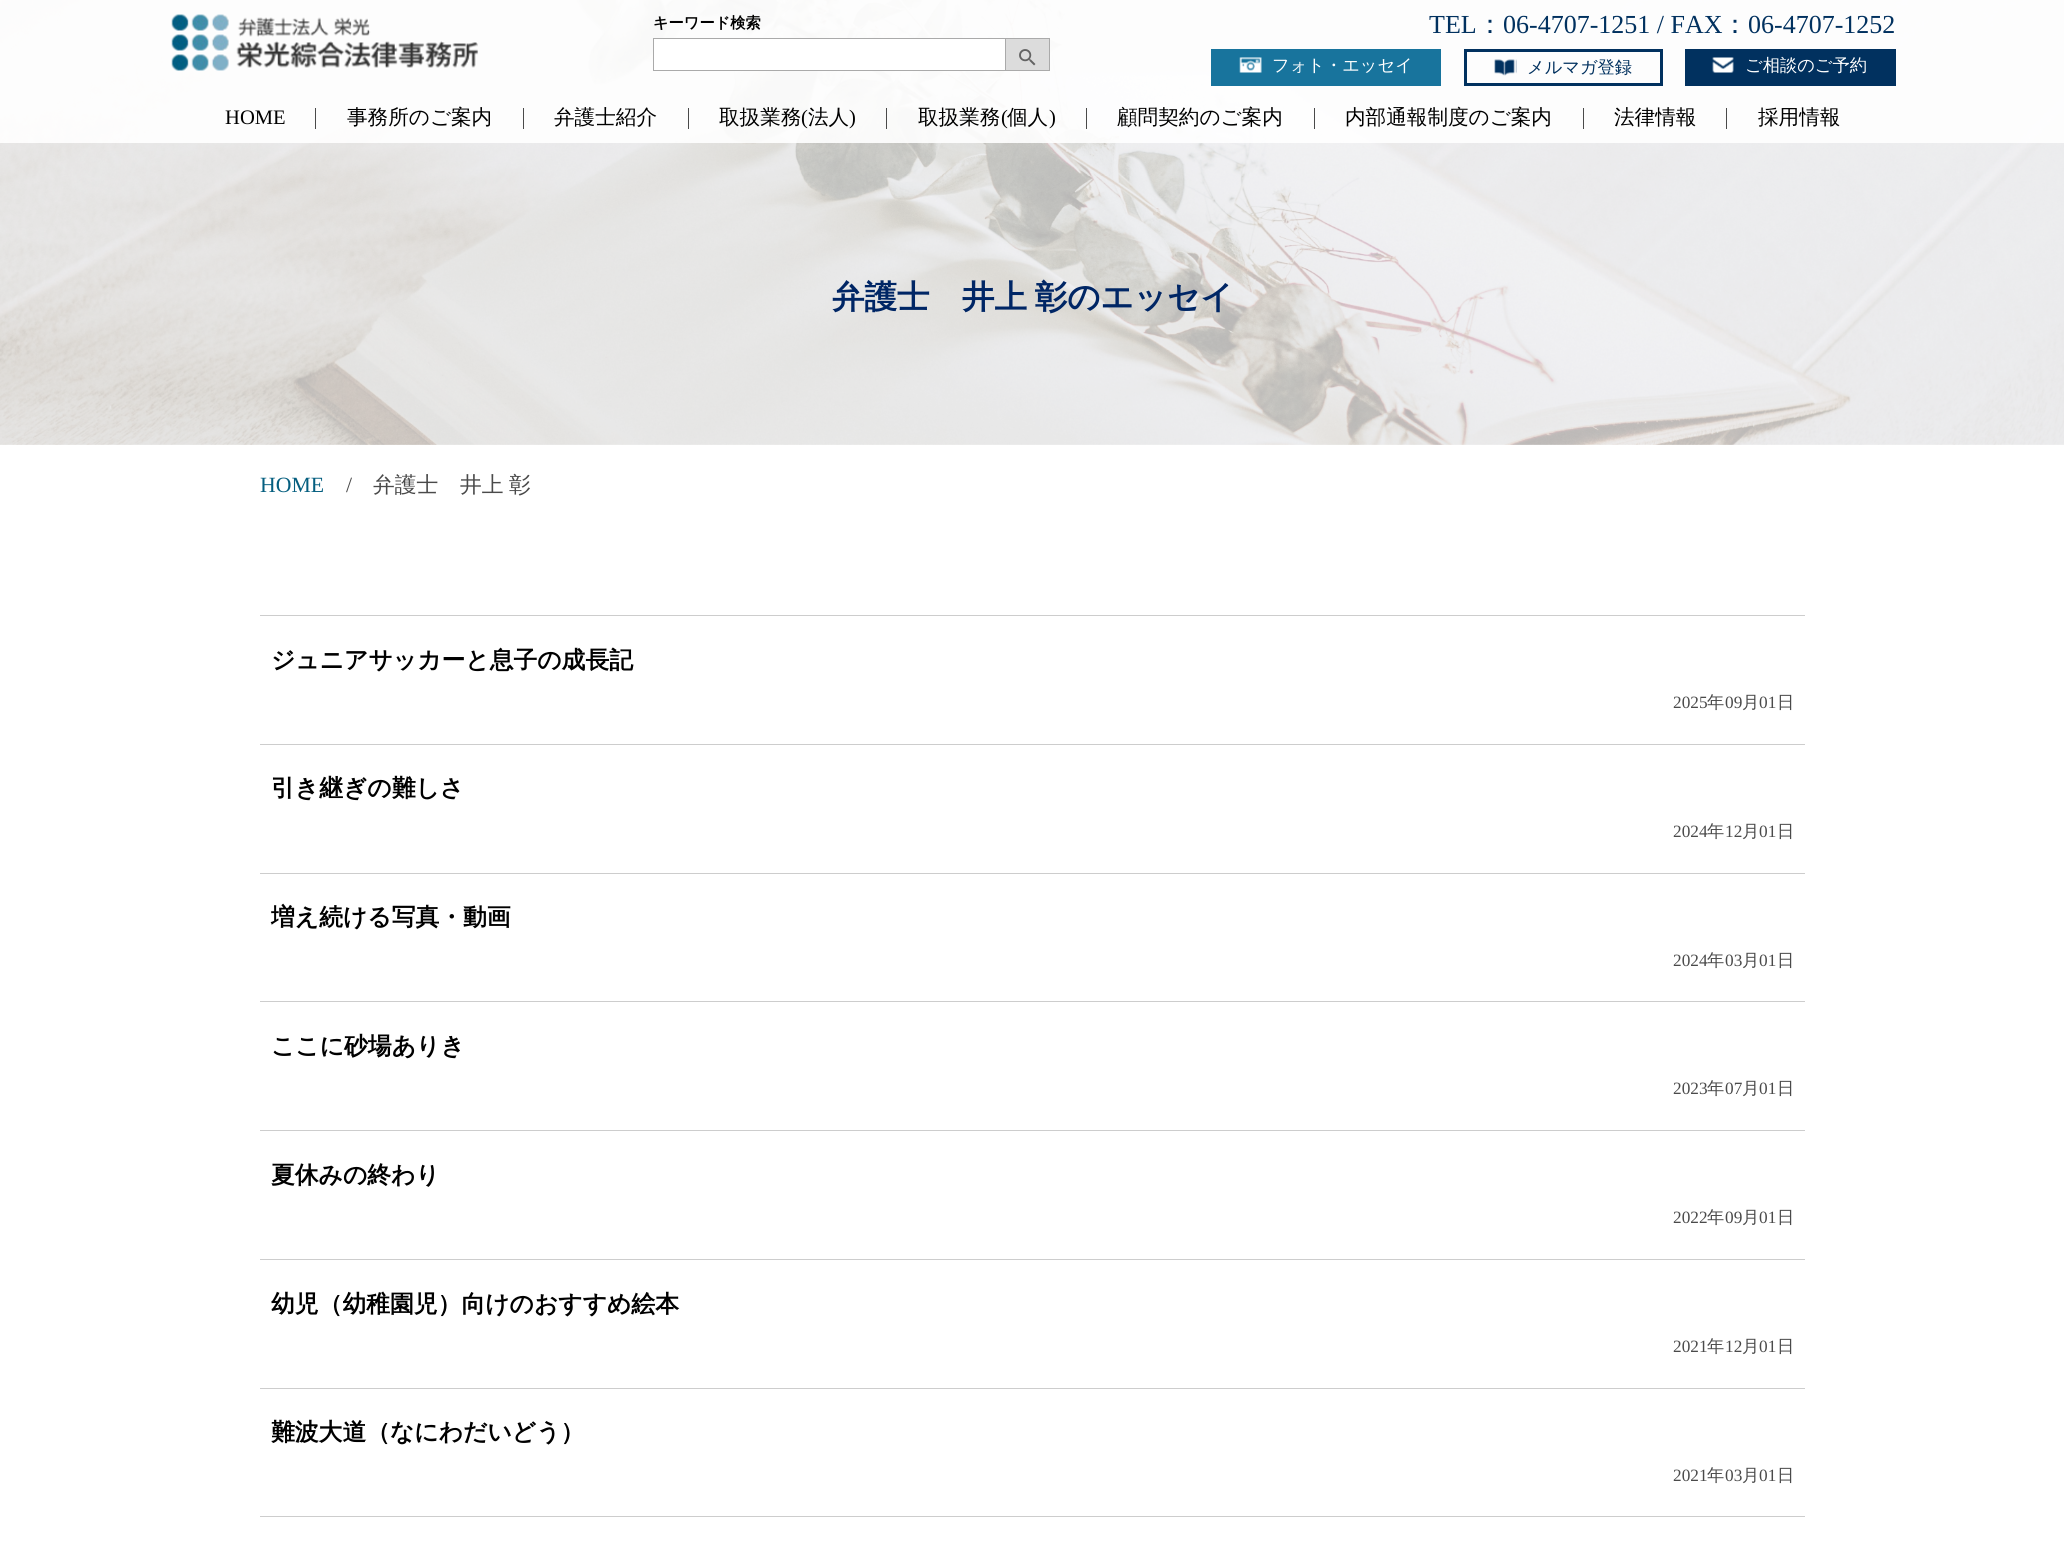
#include <cairo.h>
#include <math.h>
#include <stddef.h>

static cairo_t *ctx;

static void use_color(int r, int g, int b) {
    cairo_set_source_rgb(ctx, r / 255.0, g / 255.0, b / 255.0);
}

static void spaced_text(double x, double y, const char *s, double letter, double word) {
    cairo_move_to(ctx, x, y);
    while (*s) {
        char ch[5] = {0};
        int n = 0;
        do ch[n++] = *s++; while ((*s & 0xC0) == 0x80);
        cairo_show_text(ctx, ch);
        cairo_rel_move_to(ctx, letter + word * (*ch == ' '), 0);
    }
}

static void picture(const char *path, double x, double y, double w, double h) {
    cairo_surface_t *image = cairo_image_surface_create_from_png(path);
    cairo_save(ctx);
    cairo_set_source_surface(ctx, image, x, y);
    cairo_rectangle(ctx, x, y, w, h);
    cairo_fill(ctx);
    cairo_restore(ctx);
    cairo_surface_destroy(image);
}

int main(void) {
    cairo_surface_t *surface = cairo_image_surface_create(CAIRO_FORMAT_RGB24, 2064, 1548);
    ctx = cairo_create(surface);
    cairo_font_options_t *options = cairo_font_options_create();
    cairo_font_options_set_hint_metrics(options, CAIRO_HINT_METRICS_OFF);
    cairo_font_options_set_hint_style(options, CAIRO_HINT_STYLE_NONE);
    cairo_set_font_options(ctx, options);
    cairo_set_miter_limit(ctx, 4);
    use_color(255, 255, 255);
    cairo_paint(ctx);
    picture("img6.png", 0, 0, 2064, 445);
    cairo_set_source_rgba(ctx, 1, 1, 1, 0.9);
    cairo_rectangle(ctx, 0, 0, 2064, 143);
    cairo_fill(ctx);
    picture("img1.png", 171, 14, 308, 57);
    cairo_select_font_face(ctx, "WenQuanYi Zen Hei", CAIRO_FONT_SLANT_NORMAL, CAIRO_FONT_WEIGHT_BOLD);
    cairo_set_font_size(ctx, 15.25);
    use_color(0, 0, 0);
    cairo_move_to(ctx, 653, 28);
    cairo_show_text(ctx, "キーワード検索");
    use_color(255, 255, 255);
    cairo_rectangle(ctx, 653.5, 38.5, 352, 32);
    cairo_fill_preserve(ctx);
    use_color(170, 170, 170);
    cairo_set_line_width(ctx, 1);
    cairo_stroke(ctx);
    use_color(220, 220, 220);
    cairo_rectangle(ctx, 1006, 39, 43, 31);
    cairo_fill(ctx);
    use_color(170, 170, 170);
    cairo_rectangle(ctx, 1006, 38, 44, 1);
    cairo_fill(ctx);
    cairo_rectangle(ctx, 1049, 38, 1, 33);
    cairo_fill(ctx);
    cairo_rectangle(ctx, 1006, 70, 44, 1);
    cairo_fill(ctx);
    picture("img2.png", 1019, 49, 17, 17);
    cairo_select_font_face(ctx, "Liberation Serif", CAIRO_FONT_SLANT_NORMAL, CAIRO_FONT_WEIGHT_NORMAL);
    cairo_set_font_size(ctx, 26);
    use_color(1, 49, 95);
    cairo_move_to(ctx, 1429, 33);
    cairo_show_text(ctx, "TEL");
    cairo_select_font_face(ctx, "WenQuanYi Zen Hei Medium", CAIRO_FONT_SLANT_NORMAL, CAIRO_FONT_WEIGHT_NORMAL);
    cairo_move_to(ctx, 1477, 33);
    cairo_show_text(ctx, "：");
    cairo_select_font_face(ctx, "Liberation Serif", CAIRO_FONT_SLANT_NORMAL, CAIRO_FONT_WEIGHT_NORMAL);
    cairo_move_to(ctx, 1503, 33);
    cairo_show_text(ctx, "06-4707-1251 / FAX");
    cairo_select_font_face(ctx, "WenQuanYi Zen Hei Medium", CAIRO_FONT_SLANT_NORMAL, CAIRO_FONT_WEIGHT_NORMAL);
    cairo_move_to(ctx, 1722, 33);
    cairo_show_text(ctx, "：");
    cairo_select_font_face(ctx, "Liberation Serif", CAIRO_FONT_SLANT_NORMAL, CAIRO_FONT_WEIGHT_NORMAL);
    cairo_move_to(ctx, 1748, 33);
    cairo_show_text(ctx, "06-4707-1252");
    use_color(24, 116, 157);
    cairo_rectangle(ctx, 1211, 49, 230, 37);
    cairo_fill(ctx);
    picture("img3.png", 1239, 57, 23, 16);
    cairo_select_font_face(ctx, "WenQuanYi Zen Hei Medium", CAIRO_FONT_SLANT_NORMAL, CAIRO_FONT_WEIGHT_NORMAL);
    cairo_set_font_size(ctx, 17.25);
    use_color(255, 255, 255);
    cairo_move_to(ctx, 1272, 71);
    cairo_show_text(ctx, "フォト・エッセイ");
    cairo_rectangle(ctx, 1465.5, 50.5, 196, 34);
    use_color(1, 49, 95);
    cairo_set_line_width(ctx, 3);
    cairo_stroke(ctx);
    picture("img4.png", 1494, 59, 23, 17);
    cairo_move_to(ctx, 1527, 73);
    cairo_show_text(ctx, "メルマガ登録");
    cairo_rectangle(ctx, 1685, 49, 211, 37);
    cairo_fill(ctx);
    picture("img5.png", 1712, 57, 22, 16);
    use_color(255, 255, 255);
    cairo_move_to(ctx, 1745, 71);
    cairo_show_text(ctx, "ご相談のご予約");
    cairo_select_font_face(ctx, "Liberation Serif", CAIRO_FONT_SLANT_NORMAL, CAIRO_FONT_WEIGHT_NORMAL);
    cairo_set_font_size(ctx, 20.6);
    use_color(0, 0, 0);
    cairo_move_to(ctx, 225, 124);
    cairo_show_text(ctx, "HOME");
    use_color(74, 74, 74);
    cairo_rectangle(ctx, 315, 108, 1, 21);
    cairo_fill(ctx);
    cairo_select_font_face(ctx, "WenQuanYi Zen Hei Medium", CAIRO_FONT_SLANT_NORMAL, CAIRO_FONT_WEIGHT_NORMAL);
    use_color(0, 0, 0);
    cairo_move_to(ctx, 347, 124);
    cairo_show_text(ctx, "事務所のご案内");
    use_color(74, 74, 74);
    cairo_rectangle(ctx, 523, 108, 1, 21);
    cairo_fill(ctx);
    use_color(0, 0, 0);
    cairo_move_to(ctx, 554, 124);
    cairo_show_text(ctx, "弁護士紹介");
    use_color(74, 74, 74);
    cairo_rectangle(ctx, 688, 108, 1, 21);
    cairo_fill(ctx);
    use_color(0, 0, 0);
    cairo_move_to(ctx, 719, 124);
    cairo_show_text(ctx, "取扱業務");
    cairo_select_font_face(ctx, "Liberation Serif", CAIRO_FONT_SLANT_NORMAL, CAIRO_FONT_WEIGHT_NORMAL);
    cairo_move_to(ctx, 801, 124);
    cairo_show_text(ctx, "(");
    cairo_select_font_face(ctx, "WenQuanYi Zen Hei Medium", CAIRO_FONT_SLANT_NORMAL, CAIRO_FONT_WEIGHT_NORMAL);
    cairo_move_to(ctx, 808, 124);
    cairo_show_text(ctx, "法人");
    cairo_select_font_face(ctx, "Liberation Serif", CAIRO_FONT_SLANT_NORMAL, CAIRO_FONT_WEIGHT_NORMAL);
    cairo_move_to(ctx, 849, 124);
    cairo_show_text(ctx, ")");
    use_color(74, 74, 74);
    cairo_rectangle(ctx, 886, 108, 1, 21);
    cairo_fill(ctx);
    cairo_select_font_face(ctx, "WenQuanYi Zen Hei Medium", CAIRO_FONT_SLANT_NORMAL, CAIRO_FONT_WEIGHT_NORMAL);
    use_color(0, 0, 0);
    cairo_move_to(ctx, 918, 124);
    cairo_show_text(ctx, "取扱業務");
    cairo_select_font_face(ctx, "Liberation Serif", CAIRO_FONT_SLANT_NORMAL, CAIRO_FONT_WEIGHT_NORMAL);
    cairo_move_to(ctx, 1001, 124);
    cairo_show_text(ctx, "(");
    cairo_select_font_face(ctx, "WenQuanYi Zen Hei Medium", CAIRO_FONT_SLANT_NORMAL, CAIRO_FONT_WEIGHT_NORMAL);
    cairo_move_to(ctx, 1007, 124);
    cairo_show_text(ctx, "個人");
    cairo_select_font_face(ctx, "Liberation Serif", CAIRO_FONT_SLANT_NORMAL, CAIRO_FONT_WEIGHT_NORMAL);
    cairo_move_to(ctx, 1049, 124);
    cairo_show_text(ctx, ")");
    use_color(74, 74, 74);
    cairo_rectangle(ctx, 1086, 108, 1, 21);
    cairo_fill(ctx);
    cairo_select_font_face(ctx, "WenQuanYi Zen Hei Medium", CAIRO_FONT_SLANT_NORMAL, CAIRO_FONT_WEIGHT_NORMAL);
    use_color(0, 0, 0);
    cairo_move_to(ctx, 1117, 124);
    cairo_show_text(ctx, "顧問契約のご案内");
    use_color(74, 74, 74);
    cairo_rectangle(ctx, 1314, 108, 1, 21);
    cairo_fill(ctx);
    use_color(0, 0, 0);
    cairo_move_to(ctx, 1345, 124);
    cairo_show_text(ctx, "内部通報制度のご案内");
    use_color(74, 74, 74);
    cairo_rectangle(ctx, 1583, 108, 1, 21);
    cairo_fill(ctx);
    use_color(0, 0, 0);
    cairo_move_to(ctx, 1614, 124);
    cairo_show_text(ctx, "法律情報");
    use_color(74, 74, 74);
    cairo_rectangle(ctx, 1726, 108, 1, 21);
    cairo_fill(ctx);
    use_color(0, 0, 0);
    cairo_move_to(ctx, 1758, 124);
    cairo_show_text(ctx, "採用情報");
    cairo_select_font_face(ctx, "WenQuanYi Zen Hei", CAIRO_FONT_SLANT_NORMAL, CAIRO_FONT_WEIGHT_BOLD);
    cairo_set_font_size(ctx, 32.5);
    use_color(0, 38, 101);
    spaced_text(832, 308, "弁護士　井上 彰のエッセイ", 0, -2);
    cairo_select_font_face(ctx, "Liberation Serif", CAIRO_FONT_SLANT_NORMAL, CAIRO_FONT_WEIGHT_NORMAL);
    cairo_set_font_size(ctx, 21.75);
    use_color(4, 94, 127);
    cairo_move_to(ctx, 260, 492);
    cairo_show_text(ctx, "HOME");
    use_color(74, 74, 74);
    cairo_move_to(ctx, 346, 492);
    cairo_show_text(ctx, "/");
    cairo_select_font_face(ctx, "WenQuanYi Zen Hei Medium", CAIRO_FONT_SLANT_NORMAL, CAIRO_FONT_WEIGHT_NORMAL);
    spaced_text(373, 492, "弁護士　井上 彰", 0, -1);
    use_color(205, 205, 205);
    cairo_rectangle(ctx, 260, 615, 1545, 1);
    cairo_fill(ctx);
    cairo_rectangle(ctx, 260, 744, 1545, 1);
    cairo_fill(ctx);
    cairo_select_font_face(ctx, "WenQuanYi Zen Hei", CAIRO_FONT_SLANT_NORMAL, CAIRO_FONT_WEIGHT_BOLD);
    cairo_set_font_size(ctx, 23.8);
    use_color(0, 0, 0);
    cairo_move_to(ctx, 271, 668);
    cairo_show_text(ctx, "ジュニアサッカーと息子の成長記");
    cairo_select_font_face(ctx, "Liberation Serif", CAIRO_FONT_SLANT_NORMAL, CAIRO_FONT_WEIGHT_NORMAL);
    cairo_set_font_size(ctx, 17.25);
    use_color(74, 74, 74);
    cairo_move_to(ctx, 1673, 708);
    cairo_show_text(ctx, "2025");
    cairo_select_font_face(ctx, "WenQuanYi Zen Hei Medium", CAIRO_FONT_SLANT_NORMAL, CAIRO_FONT_WEIGHT_NORMAL);
    cairo_move_to(ctx, 1707, 708);
    cairo_show_text(ctx, "年");
    cairo_select_font_face(ctx, "Liberation Serif", CAIRO_FONT_SLANT_NORMAL, CAIRO_FONT_WEIGHT_NORMAL);
    cairo_move_to(ctx, 1725, 708);
    cairo_show_text(ctx, "09");
    cairo_select_font_face(ctx, "WenQuanYi Zen Hei Medium", CAIRO_FONT_SLANT_NORMAL, CAIRO_FONT_WEIGHT_NORMAL);
    cairo_move_to(ctx, 1742, 708);
    cairo_show_text(ctx, "月");
    cairo_select_font_face(ctx, "Liberation Serif", CAIRO_FONT_SLANT_NORMAL, CAIRO_FONT_WEIGHT_NORMAL);
    cairo_move_to(ctx, 1759, 708);
    cairo_show_text(ctx, "01");
    cairo_select_font_face(ctx, "WenQuanYi Zen Hei Medium", CAIRO_FONT_SLANT_NORMAL, CAIRO_FONT_WEIGHT_NORMAL);
    cairo_move_to(ctx, 1777, 708);
    cairo_show_text(ctx, "日");
    use_color(205, 205, 205);
    cairo_rectangle(ctx, 260, 873, 1545, 1);
    cairo_fill(ctx);
    cairo_select_font_face(ctx, "WenQuanYi Zen Hei", CAIRO_FONT_SLANT_NORMAL, CAIRO_FONT_WEIGHT_BOLD);
    cairo_set_font_size(ctx, 23.8);
    use_color(0, 0, 0);
    cairo_move_to(ctx, 271, 796);
    cairo_show_text(ctx, "引き継ぎの難しさ");
    cairo_select_font_face(ctx, "Liberation Serif", CAIRO_FONT_SLANT_NORMAL, CAIRO_FONT_WEIGHT_NORMAL);
    cairo_set_font_size(ctx, 17.25);
    use_color(74, 74, 74);
    cairo_move_to(ctx, 1673, 837);
    cairo_show_text(ctx, "2024");
    cairo_select_font_face(ctx, "WenQuanYi Zen Hei Medium", CAIRO_FONT_SLANT_NORMAL, CAIRO_FONT_WEIGHT_NORMAL);
    cairo_move_to(ctx, 1707, 837);
    cairo_show_text(ctx, "年");
    cairo_select_font_face(ctx, "Liberation Serif", CAIRO_FONT_SLANT_NORMAL, CAIRO_FONT_WEIGHT_NORMAL);
    cairo_move_to(ctx, 1725, 837);
    cairo_show_text(ctx, "12");
    cairo_select_font_face(ctx, "WenQuanYi Zen Hei Medium", CAIRO_FONT_SLANT_NORMAL, CAIRO_FONT_WEIGHT_NORMAL);
    cairo_move_to(ctx, 1742, 837);
    cairo_show_text(ctx, "月");
    cairo_select_font_face(ctx, "Liberation Serif", CAIRO_FONT_SLANT_NORMAL, CAIRO_FONT_WEIGHT_NORMAL);
    cairo_move_to(ctx, 1759, 837);
    cairo_show_text(ctx, "01");
    cairo_select_font_face(ctx, "WenQuanYi Zen Hei Medium", CAIRO_FONT_SLANT_NORMAL, CAIRO_FONT_WEIGHT_NORMAL);
    cairo_move_to(ctx, 1777, 837);
    cairo_show_text(ctx, "日");
    use_color(205, 205, 205);
    cairo_rectangle(ctx, 260, 1001, 1545, 1);
    cairo_fill(ctx);
    cairo_select_font_face(ctx, "WenQuanYi Zen Hei", CAIRO_FONT_SLANT_NORMAL, CAIRO_FONT_WEIGHT_BOLD);
    cairo_set_font_size(ctx, 23.8);
    use_color(0, 0, 0);
    cairo_move_to(ctx, 271, 925);
    cairo_show_text(ctx, "増え続ける写真・動画");
    cairo_select_font_face(ctx, "Liberation Serif", CAIRO_FONT_SLANT_NORMAL, CAIRO_FONT_WEIGHT_NORMAL);
    cairo_set_font_size(ctx, 17.25);
    use_color(74, 74, 74);
    cairo_move_to(ctx, 1673, 966);
    cairo_show_text(ctx, "2024");
    cairo_select_font_face(ctx, "WenQuanYi Zen Hei Medium", CAIRO_FONT_SLANT_NORMAL, CAIRO_FONT_WEIGHT_NORMAL);
    cairo_move_to(ctx, 1707, 966);
    cairo_show_text(ctx, "年");
    cairo_select_font_face(ctx, "Liberation Serif", CAIRO_FONT_SLANT_NORMAL, CAIRO_FONT_WEIGHT_NORMAL);
    cairo_move_to(ctx, 1725, 966);
    cairo_show_text(ctx, "03");
    cairo_select_font_face(ctx, "WenQuanYi Zen Hei Medium", CAIRO_FONT_SLANT_NORMAL, CAIRO_FONT_WEIGHT_NORMAL);
    cairo_move_to(ctx, 1742, 966);
    cairo_show_text(ctx, "月");
    cairo_select_font_face(ctx, "Liberation Serif", CAIRO_FONT_SLANT_NORMAL, CAIRO_FONT_WEIGHT_NORMAL);
    cairo_move_to(ctx, 1759, 966);
    cairo_show_text(ctx, "01");
    cairo_select_font_face(ctx, "WenQuanYi Zen Hei Medium", CAIRO_FONT_SLANT_NORMAL, CAIRO_FONT_WEIGHT_NORMAL);
    cairo_move_to(ctx, 1777, 966);
    cairo_show_text(ctx, "日");
    use_color(205, 205, 205);
    cairo_rectangle(ctx, 260, 1130, 1545, 1);
    cairo_fill(ctx);
    cairo_select_font_face(ctx, "WenQuanYi Zen Hei", CAIRO_FONT_SLANT_NORMAL, CAIRO_FONT_WEIGHT_BOLD);
    cairo_set_font_size(ctx, 23.8);
    use_color(0, 0, 0);
    cairo_move_to(ctx, 271, 1054);
    cairo_show_text(ctx, "ここに砂場ありき");
    cairo_select_font_face(ctx, "Liberation Serif", CAIRO_FONT_SLANT_NORMAL, CAIRO_FONT_WEIGHT_NORMAL);
    cairo_set_font_size(ctx, 17.25);
    use_color(74, 74, 74);
    cairo_move_to(ctx, 1673, 1094);
    cairo_show_text(ctx, "2023");
    cairo_select_font_face(ctx, "WenQuanYi Zen Hei Medium", CAIRO_FONT_SLANT_NORMAL, CAIRO_FONT_WEIGHT_NORMAL);
    cairo_move_to(ctx, 1707, 1094);
    cairo_show_text(ctx, "年");
    cairo_select_font_face(ctx, "Liberation Serif", CAIRO_FONT_SLANT_NORMAL, CAIRO_FONT_WEIGHT_NORMAL);
    cairo_move_to(ctx, 1725, 1094);
    cairo_show_text(ctx, "07");
    cairo_select_font_face(ctx, "WenQuanYi Zen Hei Medium", CAIRO_FONT_SLANT_NORMAL, CAIRO_FONT_WEIGHT_NORMAL);
    cairo_move_to(ctx, 1742, 1094);
    cairo_show_text(ctx, "月");
    cairo_select_font_face(ctx, "Liberation Serif", CAIRO_FONT_SLANT_NORMAL, CAIRO_FONT_WEIGHT_NORMAL);
    cairo_move_to(ctx, 1759, 1094);
    cairo_show_text(ctx, "01");
    cairo_select_font_face(ctx, "WenQuanYi Zen Hei Medium", CAIRO_FONT_SLANT_NORMAL, CAIRO_FONT_WEIGHT_NORMAL);
    cairo_move_to(ctx, 1777, 1094);
    cairo_show_text(ctx, "日");
    use_color(205, 205, 205);
    cairo_rectangle(ctx, 260, 1259, 1545, 1);
    cairo_fill(ctx);
    cairo_select_font_face(ctx, "WenQuanYi Zen Hei", CAIRO_FONT_SLANT_NORMAL, CAIRO_FONT_WEIGHT_BOLD);
    cairo_set_font_size(ctx, 23.8);
    use_color(0, 0, 0);
    cairo_move_to(ctx, 271, 1183);
    cairo_show_text(ctx, "夏休みの終わり");
    cairo_select_font_face(ctx, "Liberation Serif", CAIRO_FONT_SLANT_NORMAL, CAIRO_FONT_WEIGHT_NORMAL);
    cairo_set_font_size(ctx, 17.25);
    use_color(74, 74, 74);
    cairo_move_to(ctx, 1673, 1223);
    cairo_show_text(ctx, "2022");
    cairo_select_font_face(ctx, "WenQuanYi Zen Hei Medium", CAIRO_FONT_SLANT_NORMAL, CAIRO_FONT_WEIGHT_NORMAL);
    cairo_move_to(ctx, 1707, 1223);
    cairo_show_text(ctx, "年");
    cairo_select_font_face(ctx, "Liberation Serif", CAIRO_FONT_SLANT_NORMAL, CAIRO_FONT_WEIGHT_NORMAL);
    cairo_move_to(ctx, 1725, 1223);
    cairo_show_text(ctx, "09");
    cairo_select_font_face(ctx, "WenQuanYi Zen Hei Medium", CAIRO_FONT_SLANT_NORMAL, CAIRO_FONT_WEIGHT_NORMAL);
    cairo_move_to(ctx, 1742, 1223);
    cairo_show_text(ctx, "月");
    cairo_select_font_face(ctx, "Liberation Serif", CAIRO_FONT_SLANT_NORMAL, CAIRO_FONT_WEIGHT_NORMAL);
    cairo_move_to(ctx, 1759, 1223);
    cairo_show_text(ctx, "01");
    cairo_select_font_face(ctx, "WenQuanYi Zen Hei Medium", CAIRO_FONT_SLANT_NORMAL, CAIRO_FONT_WEIGHT_NORMAL);
    cairo_move_to(ctx, 1777, 1223);
    cairo_show_text(ctx, "日");
    use_color(205, 205, 205);
    cairo_rectangle(ctx, 260, 1388, 1545, 1);
    cairo_fill(ctx);
    cairo_select_font_face(ctx, "WenQuanYi Zen Hei", CAIRO_FONT_SLANT_NORMAL, CAIRO_FONT_WEIGHT_BOLD);
    cairo_set_font_size(ctx, 23.8);
    use_color(0, 0, 0);
    cairo_move_to(ctx, 271, 1312);
    cairo_show_text(ctx, "幼児（幼稚園児）向けのおすすめ絵本");
    cairo_select_font_face(ctx, "Liberation Serif", CAIRO_FONT_SLANT_NORMAL, CAIRO_FONT_WEIGHT_NORMAL);
    cairo_set_font_size(ctx, 17.25);
    use_color(74, 74, 74);
    cairo_move_to(ctx, 1673, 1352);
    cairo_show_text(ctx, "2021");
    cairo_select_font_face(ctx, "WenQuanYi Zen Hei Medium", CAIRO_FONT_SLANT_NORMAL, CAIRO_FONT_WEIGHT_NORMAL);
    cairo_move_to(ctx, 1707, 1352);
    cairo_show_text(ctx, "年");
    cairo_select_font_face(ctx, "Liberation Serif", CAIRO_FONT_SLANT_NORMAL, CAIRO_FONT_WEIGHT_NORMAL);
    cairo_move_to(ctx, 1725, 1352);
    cairo_show_text(ctx, "12");
    cairo_select_font_face(ctx, "WenQuanYi Zen Hei Medium", CAIRO_FONT_SLANT_NORMAL, CAIRO_FONT_WEIGHT_NORMAL);
    cairo_move_to(ctx, 1742, 1352);
    cairo_show_text(ctx, "月");
    cairo_select_font_face(ctx, "Liberation Serif", CAIRO_FONT_SLANT_NORMAL, CAIRO_FONT_WEIGHT_NORMAL);
    cairo_move_to(ctx, 1759, 1352);
    cairo_show_text(ctx, "01");
    cairo_select_font_face(ctx, "WenQuanYi Zen Hei Medium", CAIRO_FONT_SLANT_NORMAL, CAIRO_FONT_WEIGHT_NORMAL);
    cairo_move_to(ctx, 1777, 1352);
    cairo_show_text(ctx, "日");
    use_color(205, 205, 205);
    cairo_rectangle(ctx, 260, 1516, 1545, 1);
    cairo_fill(ctx);
    cairo_select_font_face(ctx, "WenQuanYi Zen Hei", CAIRO_FONT_SLANT_NORMAL, CAIRO_FONT_WEIGHT_BOLD);
    cairo_set_font_size(ctx, 23.8);
    use_color(0, 0, 0);
    cairo_move_to(ctx, 271, 1440);
    cairo_show_text(ctx, "難波大道（なにわだいどう）");
    cairo_select_font_face(ctx, "Liberation Serif", CAIRO_FONT_SLANT_NORMAL, CAIRO_FONT_WEIGHT_NORMAL);
    cairo_set_font_size(ctx, 17.25);
    use_color(74, 74, 74);
    cairo_move_to(ctx, 1673, 1481);
    cairo_show_text(ctx, "2021");
    cairo_select_font_face(ctx, "WenQuanYi Zen Hei Medium", CAIRO_FONT_SLANT_NORMAL, CAIRO_FONT_WEIGHT_NORMAL);
    cairo_move_to(ctx, 1707, 1481);
    cairo_show_text(ctx, "年");
    cairo_select_font_face(ctx, "Liberation Serif", CAIRO_FONT_SLANT_NORMAL, CAIRO_FONT_WEIGHT_NORMAL);
    cairo_move_to(ctx, 1725, 1481);
    cairo_show_text(ctx, "03");
    cairo_select_font_face(ctx, "WenQuanYi Zen Hei Medium", CAIRO_FONT_SLANT_NORMAL, CAIRO_FONT_WEIGHT_NORMAL);
    cairo_move_to(ctx, 1742, 1481);
    cairo_show_text(ctx, "月");
    cairo_select_font_face(ctx, "Liberation Serif", CAIRO_FONT_SLANT_NORMAL, CAIRO_FONT_WEIGHT_NORMAL);
    cairo_move_to(ctx, 1759, 1481);
    cairo_show_text(ctx, "01");
    cairo_select_font_face(ctx, "WenQuanYi Zen Hei Medium", CAIRO_FONT_SLANT_NORMAL, CAIRO_FONT_WEIGHT_NORMAL);
    cairo_move_to(ctx, 1777, 1481);
    cairo_show_text(ctx, "日");
    cairo_surface_write_to_png(surface, "result.png");
    cairo_font_options_destroy(options);
    cairo_destroy(ctx);
    cairo_surface_destroy(surface);
    return 0;
}
